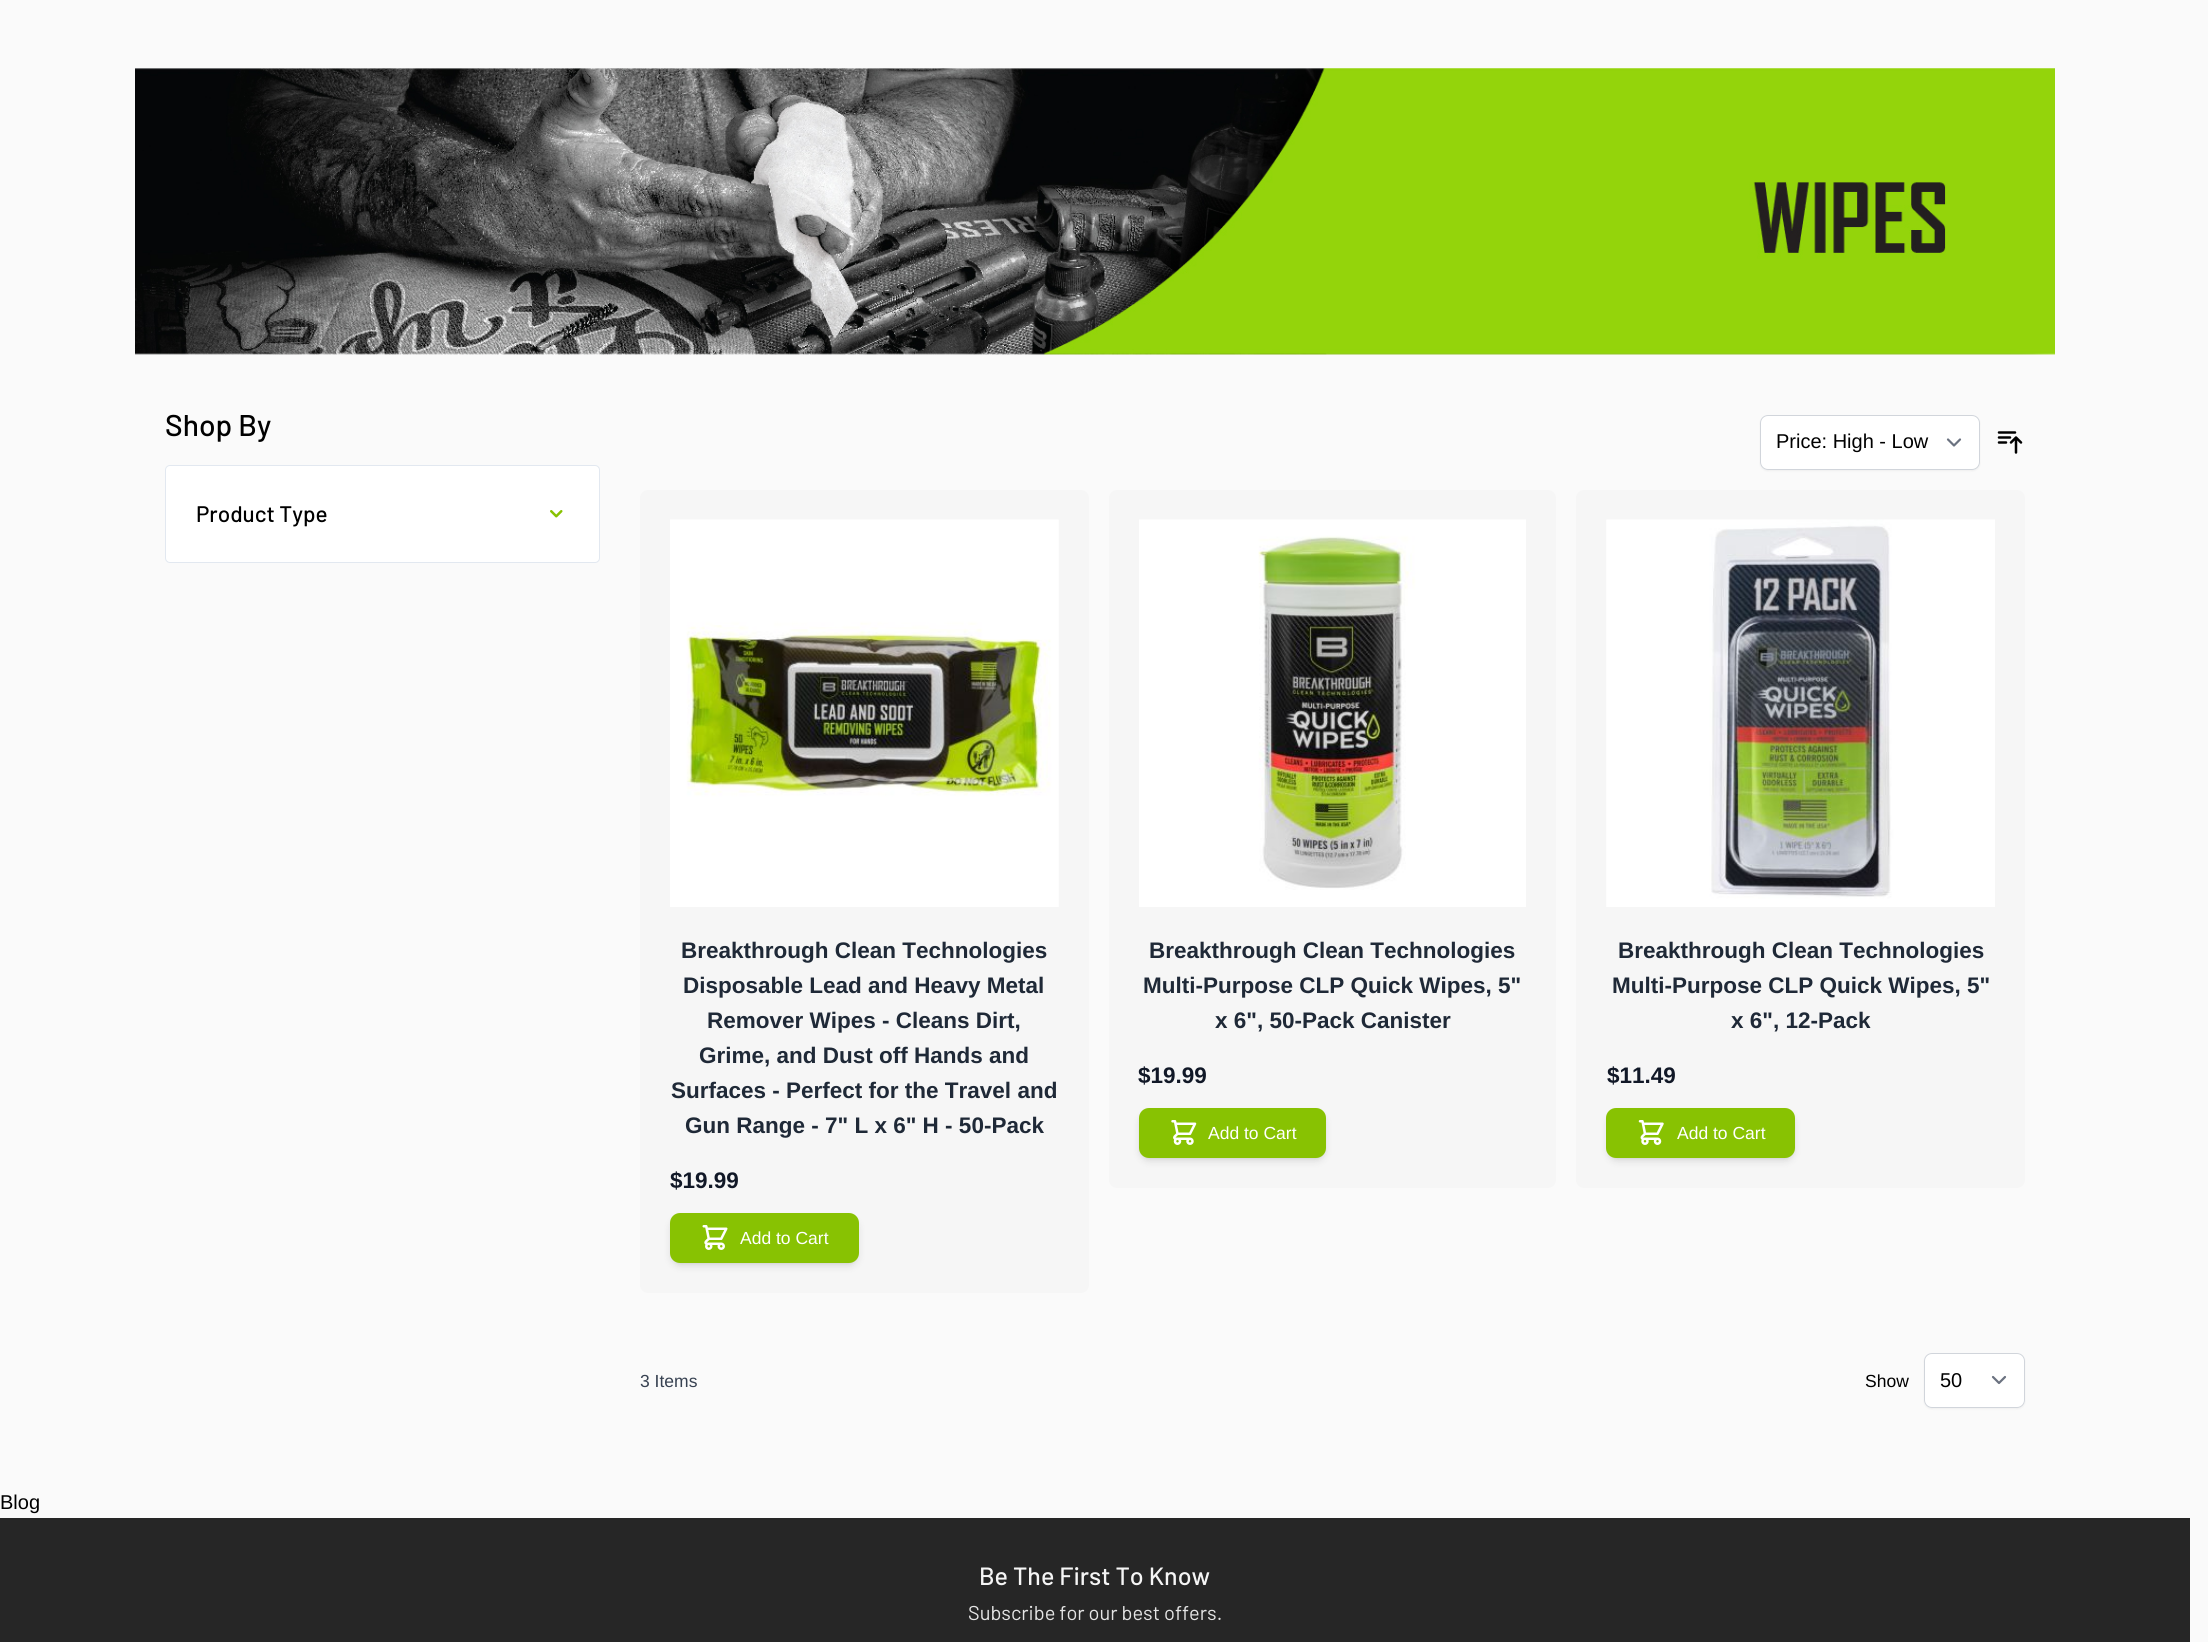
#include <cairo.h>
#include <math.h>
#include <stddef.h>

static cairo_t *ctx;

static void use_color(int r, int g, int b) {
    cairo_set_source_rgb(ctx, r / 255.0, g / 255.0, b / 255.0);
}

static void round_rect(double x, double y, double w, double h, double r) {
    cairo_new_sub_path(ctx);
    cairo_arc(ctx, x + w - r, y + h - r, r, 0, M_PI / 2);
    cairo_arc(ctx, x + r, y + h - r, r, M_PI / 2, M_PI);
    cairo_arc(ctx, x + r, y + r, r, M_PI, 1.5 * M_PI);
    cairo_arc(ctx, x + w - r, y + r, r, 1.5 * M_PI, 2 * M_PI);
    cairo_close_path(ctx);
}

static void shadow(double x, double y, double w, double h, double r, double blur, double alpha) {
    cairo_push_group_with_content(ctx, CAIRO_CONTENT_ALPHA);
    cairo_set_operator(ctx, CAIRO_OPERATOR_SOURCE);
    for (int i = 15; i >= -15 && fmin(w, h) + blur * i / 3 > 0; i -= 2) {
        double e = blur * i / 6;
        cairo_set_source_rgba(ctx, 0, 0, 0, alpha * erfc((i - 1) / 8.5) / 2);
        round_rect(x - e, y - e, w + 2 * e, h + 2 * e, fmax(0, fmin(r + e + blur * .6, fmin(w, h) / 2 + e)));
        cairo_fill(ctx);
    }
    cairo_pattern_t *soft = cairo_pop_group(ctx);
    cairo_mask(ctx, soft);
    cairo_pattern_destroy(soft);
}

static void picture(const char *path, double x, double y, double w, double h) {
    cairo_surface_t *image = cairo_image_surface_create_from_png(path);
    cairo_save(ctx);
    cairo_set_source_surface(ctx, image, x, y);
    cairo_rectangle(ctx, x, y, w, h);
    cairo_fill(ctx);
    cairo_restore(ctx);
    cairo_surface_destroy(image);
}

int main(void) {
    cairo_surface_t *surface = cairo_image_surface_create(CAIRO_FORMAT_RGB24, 2208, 1642);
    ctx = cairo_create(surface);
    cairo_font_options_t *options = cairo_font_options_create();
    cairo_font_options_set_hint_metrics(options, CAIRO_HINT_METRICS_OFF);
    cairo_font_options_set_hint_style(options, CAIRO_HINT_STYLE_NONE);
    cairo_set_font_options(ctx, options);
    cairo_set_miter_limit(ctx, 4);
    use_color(250, 250, 250);
    cairo_paint(ctx);
    picture("img1.png", 135, 68, 1920, 287);
    cairo_select_font_face(ctx, "Barlow Medium", CAIRO_FONT_SLANT_NORMAL, CAIRO_FONT_WEIGHT_NORMAL);
    cairo_set_font_size(ctx, 30);
    use_color(0, 0, 0);
    cairo_move_to(ctx, 165, 436);
    cairo_show_text(ctx, "Shop By");
    use_color(255, 255, 255);
    round_rect(165.5, 465.5, 434, 97, 4.5);
    cairo_fill_preserve(ctx);
    use_color(226, 232, 240);
    cairo_set_line_width(ctx, 1);
    cairo_stroke(ctx);
    cairo_set_font_size(ctx, 22.5);
    use_color(0, 0, 0);
    cairo_move_to(ctx, 196, 522);
    cairo_show_text(ctx, "Product Type");
    picture("img2.png", 550, 510, 13, 8);
    use_color(0, 0, 0);
    shadow(1760, 416, 220, 55, 8, 1, 0.05);
    use_color(255, 255, 255);
    round_rect(1760, 415, 220, 55, 8);
    cairo_fill(ctx);
    cairo_new_path(ctx);
    cairo_move_to(ctx, 1948, 439.5);
    cairo_line_to(ctx, 1954, 445.5);
    cairo_line_to(ctx, 1960, 439.5);
    use_color(107, 114, 128);
    cairo_set_line_width(ctx, 2.2);
    cairo_set_line_cap(ctx, CAIRO_LINE_CAP_ROUND);
    cairo_set_line_join(ctx, CAIRO_LINE_JOIN_ROUND);
    cairo_stroke(ctx);
    round_rect(1760.5, 415.5, 219, 54, 7.5);
    use_color(209, 213, 219);
    cairo_set_line_width(ctx, 1);
    cairo_set_line_cap(ctx, CAIRO_LINE_CAP_BUTT);
    cairo_set_line_join(ctx, CAIRO_LINE_JOIN_MITER);
    cairo_stroke(ctx);
    cairo_select_font_face(ctx, "Liberation Sans", CAIRO_FONT_SLANT_NORMAL, CAIRO_FONT_WEIGHT_NORMAL);
    cairo_set_font_size(ctx, 20);
    use_color(0, 0, 0);
    cairo_move_to(ctx, 1776, 448);
    cairo_show_text(ctx, "Price: High - Low");
    cairo_new_path(ctx);
    cairo_move_to(ctx, 1999, 432.5);
    cairo_line_to(ctx, 2015, 432.5);
    cairo_move_to(ctx, 1999, 437.5);
    cairo_line_to(ctx, 2010, 437.5);
    cairo_move_to(ctx, 1999, 442.5);
    cairo_line_to(ctx, 2006, 442.5);
    cairo_move_to(ctx, 2011, 442.5);
    cairo_line_to(ctx, 2016, 437.5);
    cairo_move_to(ctx, 2016, 437.5);
    cairo_line_to(ctx, 2021, 442.5);
    cairo_move_to(ctx, 2016, 437.5);
    cairo_line_to(ctx, 2016, 452.5);
    cairo_set_line_width(ctx, 2.5);
    cairo_set_line_cap(ctx, CAIRO_LINE_CAP_ROUND);
    cairo_set_line_join(ctx, CAIRO_LINE_JOIN_ROUND);
    cairo_stroke(ctx);
    use_color(246, 246, 246);
    round_rect(640, 490, 449, 803, 8);
    cairo_fill(ctx);
    picture("img3.png", 670, 519, 389, 388);
    cairo_select_font_face(ctx, "Liberation Sans", CAIRO_FONT_SLANT_NORMAL, CAIRO_FONT_WEIGHT_BOLD);
    cairo_set_font_size(ctx, 22.5);
    use_color(31, 41, 55);
    cairo_move_to(ctx, 681, 958);
    cairo_show_text(ctx, "Breakthrough Clean Technologies");
    cairo_move_to(ctx, 683, 993);
    cairo_show_text(ctx, "Disposable Lead and Heavy Metal");
    cairo_move_to(ctx, 707, 1028);
    cairo_show_text(ctx, "Remover Wipes - Cleans Dirt,");
    cairo_move_to(ctx, 699, 1063);
    cairo_show_text(ctx, "Grime, and Dust off Hands and");
    cairo_move_to(ctx, 671, 1098);
    cairo_show_text(ctx, "Surfaces - Perfect for the Travel and");
    cairo_move_to(ctx, 685, 1133);
    cairo_show_text(ctx, "Gun Range - 7\" L x 6\" H - 50-Pack");
    use_color(17, 24, 39);
    cairo_move_to(ctx, 670, 1188);
    cairo_show_text(ctx, "$19.99");
    use_color(0, 0, 0);
    shadow(673, 1218, 183, 45, 8, 2.5, 0.1);
    shadow(671, 1219, 187, 47, 9, 4, 0.1);
    use_color(136, 194, 2);
    round_rect(670, 1213, 189, 50, 10);
    cairo_fill(ctx);
    picture("img4.png", 702, 1225, 26, 25);
    cairo_select_font_face(ctx, "Liberation Sans", CAIRO_FONT_SLANT_NORMAL, CAIRO_FONT_WEIGHT_NORMAL);
    cairo_set_font_size(ctx, 17.5);
    use_color(255, 255, 255);
    cairo_move_to(ctx, 740, 1244);
    cairo_show_text(ctx, "Add to Cart");
    use_color(246, 246, 246);
    round_rect(1109, 490, 447, 698, 8);
    cairo_fill(ctx);
    picture("img5.png", 1139, 519, 387, 388);
    cairo_select_font_face(ctx, "Liberation Sans", CAIRO_FONT_SLANT_NORMAL, CAIRO_FONT_WEIGHT_BOLD);
    cairo_set_font_size(ctx, 22.5);
    use_color(31, 41, 55);
    cairo_move_to(ctx, 1149, 958);
    cairo_show_text(ctx, "Breakthrough Clean Technologies");
    cairo_move_to(ctx, 1143, 993);
    cairo_show_text(ctx, "Multi-Purpose CLP Quick Wipes, 5\"");
    cairo_move_to(ctx, 1215, 1028);
    cairo_show_text(ctx, "x 6\", 50-Pack Canister");
    use_color(17, 24, 39);
    cairo_move_to(ctx, 1138, 1083);
    cairo_show_text(ctx, "$19.99");
    use_color(0, 0, 0);
    shadow(1141, 1113, 183, 45, 8, 2.5, 0.1);
    shadow(1140, 1114, 185, 47, 9, 4, 0.1);
    use_color(136, 194, 2);
    round_rect(1139, 1108, 187, 50, 10);
    cairo_fill(ctx);
    picture("img6.png", 1171, 1120, 26, 25);
    cairo_select_font_face(ctx, "Liberation Sans", CAIRO_FONT_SLANT_NORMAL, CAIRO_FONT_WEIGHT_NORMAL);
    cairo_set_font_size(ctx, 17.5);
    use_color(255, 255, 255);
    cairo_move_to(ctx, 1208, 1139);
    cairo_show_text(ctx, "Add to Cart");
    use_color(246, 246, 246);
    round_rect(1576, 490, 449, 698, 8);
    cairo_fill(ctx);
    picture("img7.png", 1606, 519, 389, 388);
    cairo_select_font_face(ctx, "Liberation Sans", CAIRO_FONT_SLANT_NORMAL, CAIRO_FONT_WEIGHT_BOLD);
    cairo_set_font_size(ctx, 22.5);
    use_color(31, 41, 55);
    cairo_move_to(ctx, 1618, 958);
    cairo_show_text(ctx, "Breakthrough Clean Technologies");
    cairo_move_to(ctx, 1612, 993);
    cairo_show_text(ctx, "Multi-Purpose CLP Quick Wipes, 5\"");
    cairo_move_to(ctx, 1731, 1028);
    cairo_show_text(ctx, "x 6\", 12-Pack");
    use_color(17, 24, 39);
    cairo_move_to(ctx, 1607, 1083);
    cairo_show_text(ctx, "$11.49");
    use_color(0, 0, 0);
    shadow(1609, 1113, 184, 45, 8, 2.5, 0.1);
    shadow(1608, 1114, 186, 47, 9, 4, 0.1);
    use_color(136, 194, 2);
    round_rect(1606, 1108, 189, 50, 10);
    cairo_fill(ctx);
    picture("img8.png", 1638, 1120, 26, 25);
    cairo_select_font_face(ctx, "Liberation Sans", CAIRO_FONT_SLANT_NORMAL, CAIRO_FONT_WEIGHT_NORMAL);
    cairo_set_font_size(ctx, 17.5);
    use_color(255, 255, 255);
    cairo_move_to(ctx, 1677, 1139);
    cairo_show_text(ctx, "Add to Cart");
    use_color(55, 65, 81);
    cairo_move_to(ctx, 640, 1387);
    cairo_show_text(ctx, "3 Items");
    use_color(0, 0, 0);
    cairo_move_to(ctx, 1865, 1387);
    cairo_show_text(ctx, "Show");
    use_color(0, 0, 0);
    shadow(1924, 1354, 101, 55, 8, 1, 0.05);
    use_color(255, 255, 255);
    round_rect(1924, 1353, 101, 55, 8);
    cairo_fill(ctx);
    cairo_new_path(ctx);
    cairo_move_to(ctx, 1993, 1377);
    cairo_line_to(ctx, 1999, 1383);
    cairo_line_to(ctx, 2005, 1377);
    use_color(107, 114, 128);
    cairo_set_line_width(ctx, 2.2);
    cairo_stroke(ctx);
    round_rect(1924.5, 1353.5, 100, 54, 7.5);
    use_color(209, 213, 219);
    cairo_set_line_width(ctx, 1);
    cairo_set_line_cap(ctx, CAIRO_LINE_CAP_BUTT);
    cairo_set_line_join(ctx, CAIRO_LINE_JOIN_MITER);
    cairo_stroke(ctx);
    cairo_set_font_size(ctx, 20);
    use_color(0, 0, 0);
    cairo_move_to(ctx, 1940, 1387);
    cairo_show_text(ctx, "50");
    cairo_move_to(ctx, 0, 1509);
    cairo_show_text(ctx, "Blog");
    use_color(38, 38, 38);
    cairo_rectangle(ctx, 0, 1518, 2190, 124);
    cairo_fill(ctx);
    cairo_select_font_face(ctx, "Barlow Medium", CAIRO_FONT_SLANT_NORMAL, CAIRO_FONT_WEIGHT_NORMAL);
    cairo_set_font_size(ctx, 25);
    use_color(245, 245, 245);
    cairo_move_to(ctx, 979, 1585);
    cairo_show_text(ctx, "Be The First To Know");
    cairo_select_font_face(ctx, "Barlow", CAIRO_FONT_SLANT_NORMAL, CAIRO_FONT_WEIGHT_NORMAL);
    cairo_set_font_size(ctx, 20);
    use_color(229, 229, 229);
    cairo_move_to(ctx, 968, 1620);
    cairo_show_text(ctx, "Subscribe for our best offers.");
    cairo_surface_write_to_png(surface, "result.png");
    cairo_font_options_destroy(options);
    cairo_destroy(ctx);
    cairo_surface_destroy(surface);
    return 0;
}
